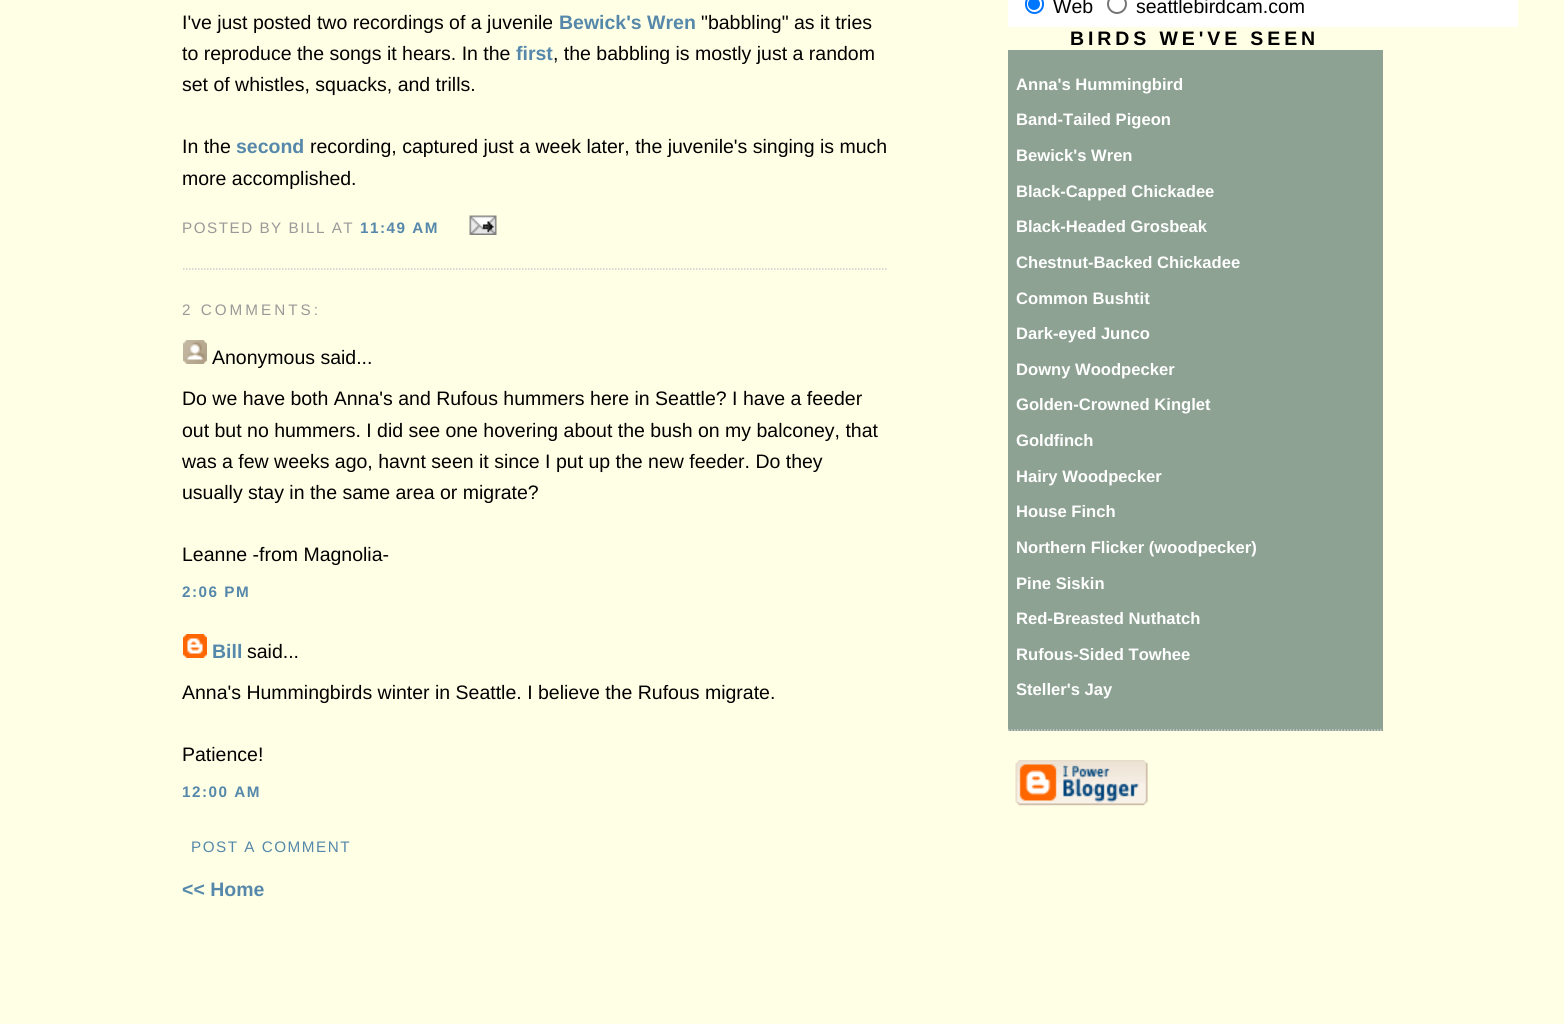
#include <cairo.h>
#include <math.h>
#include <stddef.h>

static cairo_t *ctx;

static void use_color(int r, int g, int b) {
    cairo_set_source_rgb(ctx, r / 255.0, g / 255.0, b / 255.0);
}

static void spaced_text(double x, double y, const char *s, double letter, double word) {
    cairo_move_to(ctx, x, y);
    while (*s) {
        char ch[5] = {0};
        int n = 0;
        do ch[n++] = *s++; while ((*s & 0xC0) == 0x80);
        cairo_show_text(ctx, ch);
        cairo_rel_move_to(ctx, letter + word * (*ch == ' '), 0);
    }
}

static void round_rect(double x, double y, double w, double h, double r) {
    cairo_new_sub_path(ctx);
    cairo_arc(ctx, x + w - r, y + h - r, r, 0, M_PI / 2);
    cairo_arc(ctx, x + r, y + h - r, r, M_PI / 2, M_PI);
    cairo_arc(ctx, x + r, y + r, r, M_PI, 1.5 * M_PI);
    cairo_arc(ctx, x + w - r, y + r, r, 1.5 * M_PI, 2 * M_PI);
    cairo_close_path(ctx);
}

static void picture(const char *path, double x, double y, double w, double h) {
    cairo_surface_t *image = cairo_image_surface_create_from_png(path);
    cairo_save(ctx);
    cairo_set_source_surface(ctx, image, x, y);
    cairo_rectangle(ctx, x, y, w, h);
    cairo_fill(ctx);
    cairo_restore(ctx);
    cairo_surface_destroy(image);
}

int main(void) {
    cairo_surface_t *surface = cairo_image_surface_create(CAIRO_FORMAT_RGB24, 1564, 1024);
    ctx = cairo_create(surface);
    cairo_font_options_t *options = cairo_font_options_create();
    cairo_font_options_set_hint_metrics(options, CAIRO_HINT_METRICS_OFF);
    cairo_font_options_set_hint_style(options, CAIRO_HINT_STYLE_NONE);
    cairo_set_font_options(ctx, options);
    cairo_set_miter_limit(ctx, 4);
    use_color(255, 255, 229);
    cairo_paint(ctx);
    cairo_new_path(ctx);
    cairo_move_to(ctx, 183, 269);
    cairo_line_to(ctx, 888, 269);
    use_color(204, 204, 204);
    cairo_set_line_width(ctx, 1.5);
    cairo_set_dash(ctx, (double[]){1.5, 1.5}, 2, 0);
    cairo_stroke(ctx);
    cairo_select_font_face(ctx, "Liberation Sans", CAIRO_FONT_SLANT_NORMAL, CAIRO_FONT_WEIGHT_NORMAL);
    cairo_set_font_size(ctx, 19.5);
    use_color(0, 0, 0);
    cairo_move_to(ctx, 182, 29);
    cairo_show_text(ctx, "I've just posted two recordings of a juvenile");
    cairo_select_font_face(ctx, "Liberation Sans", CAIRO_FONT_SLANT_NORMAL, CAIRO_FONT_WEIGHT_BOLD);
    use_color(85, 136, 170);
    cairo_move_to(ctx, 559, 29);
    cairo_show_text(ctx, "Bewick's Wren");
    cairo_select_font_face(ctx, "Liberation Sans", CAIRO_FONT_SLANT_NORMAL, CAIRO_FONT_WEIGHT_NORMAL);
    use_color(0, 0, 0);
    cairo_move_to(ctx, 701, 29);
    cairo_show_text(ctx, "\"babbling\" as it tries");
    cairo_move_to(ctx, 182, 60);
    cairo_show_text(ctx, "to reproduce the songs it hears. In the");
    cairo_select_font_face(ctx, "Liberation Sans", CAIRO_FONT_SLANT_NORMAL, CAIRO_FONT_WEIGHT_BOLD);
    use_color(85, 136, 170);
    cairo_move_to(ctx, 516, 60);
    cairo_show_text(ctx, "first");
    cairo_select_font_face(ctx, "Liberation Sans", CAIRO_FONT_SLANT_NORMAL, CAIRO_FONT_WEIGHT_NORMAL);
    use_color(0, 0, 0);
    cairo_move_to(ctx, 553, 60);
    cairo_show_text(ctx, ", the babbling is mostly just a random");
    cairo_move_to(ctx, 182, 91);
    cairo_show_text(ctx, "set of whistles, squacks, and trills.");
    cairo_move_to(ctx, 182, 153);
    cairo_show_text(ctx, "In the");
    cairo_select_font_face(ctx, "Liberation Sans", CAIRO_FONT_SLANT_NORMAL, CAIRO_FONT_WEIGHT_BOLD);
    use_color(85, 136, 170);
    cairo_move_to(ctx, 236, 153);
    cairo_show_text(ctx, "second");
    cairo_select_font_face(ctx, "Liberation Sans", CAIRO_FONT_SLANT_NORMAL, CAIRO_FONT_WEIGHT_NORMAL);
    use_color(0, 0, 0);
    cairo_move_to(ctx, 310, 153);
    cairo_show_text(ctx, "recording, captured just a week later, the juvenile's singing is much");
    cairo_move_to(ctx, 182, 185);
    cairo_show_text(ctx, "more accomplished.");
    cairo_set_font_size(ctx, 15.25);
    use_color(153, 153, 153);
    spaced_text(182, 233, "POSTED BY BILL AT", 1.5, 0);
    cairo_select_font_face(ctx, "Liberation Sans", CAIRO_FONT_SLANT_NORMAL, CAIRO_FONT_WEIGHT_BOLD);
    use_color(85, 136, 170);
    spaced_text(360, 233, "11:49 AM", 1.5, 0);
    picture("img1.png", 469, 215, 28, 20);
    cairo_select_font_face(ctx, "Liberation Sans", CAIRO_FONT_SLANT_NORMAL, CAIRO_FONT_WEIGHT_NORMAL);
    use_color(153, 153, 153);
    spaced_text(182, 315, "2 COMMENTS:", 3, 0);
    picture("img2.png", 183, 340, 24, 24);
    cairo_set_font_size(ctx, 19.5);
    use_color(0, 0, 0);
    cairo_move_to(ctx, 212, 364);
    cairo_show_text(ctx, "Anonymous said...");
    cairo_move_to(ctx, 182, 405);
    cairo_show_text(ctx, "Do we have both Anna's and Rufous hummers here in Seattle? I have a feeder");
    cairo_move_to(ctx, 182, 437);
    cairo_show_text(ctx, "out but no hummers. I did see one hovering about the bush on my balconey, that");
    cairo_move_to(ctx, 182, 468);
    cairo_show_text(ctx, "was a few weeks ago, havnt seen it since I put up the new feeder. Do they");
    cairo_move_to(ctx, 182, 499);
    cairo_show_text(ctx, "usually stay in the same area or migrate?");
    cairo_move_to(ctx, 182, 561);
    cairo_show_text(ctx, "Leanne -from Magnolia-");
    cairo_select_font_face(ctx, "Liberation Sans", CAIRO_FONT_SLANT_NORMAL, CAIRO_FONT_WEIGHT_BOLD);
    cairo_set_font_size(ctx, 15.25);
    use_color(85, 136, 170);
    spaced_text(182, 597, "2:06 PM", 1.5, 0);
    picture("img3.png", 183, 634, 24, 24);
    cairo_set_font_size(ctx, 19.5);
    cairo_move_to(ctx, 212, 658);
    cairo_show_text(ctx, "Bill");
    cairo_select_font_face(ctx, "Liberation Sans", CAIRO_FONT_SLANT_NORMAL, CAIRO_FONT_WEIGHT_NORMAL);
    use_color(0, 0, 0);
    cairo_move_to(ctx, 247, 658);
    cairo_show_text(ctx, "said...");
    cairo_move_to(ctx, 182, 699);
    cairo_show_text(ctx, "Anna's Hummingbirds winter in Seattle. I believe the Rufous migrate.");
    cairo_move_to(ctx, 182, 761);
    cairo_show_text(ctx, "Patience!");
    cairo_select_font_face(ctx, "Liberation Sans", CAIRO_FONT_SLANT_NORMAL, CAIRO_FONT_WEIGHT_BOLD);
    cairo_set_font_size(ctx, 15.25);
    use_color(85, 136, 170);
    spaced_text(182, 797, "12:00 AM", 1.5, 0);
    cairo_select_font_face(ctx, "Liberation Sans", CAIRO_FONT_SLANT_NORMAL, CAIRO_FONT_WEIGHT_NORMAL);
    spaced_text(191, 852, "POST A COMMENT", 1.5, 0);
    cairo_select_font_face(ctx, "Liberation Sans", CAIRO_FONT_SLANT_NORMAL, CAIRO_FONT_WEIGHT_BOLD);
    cairo_set_font_size(ctx, 19.5);
    cairo_move_to(ctx, 182, 896);
    cairo_show_text(ctx, "<< Home");
    use_color(255, 255, 255);
    cairo_rectangle(ctx, 1008, 0, 510, 27);
    cairo_fill(ctx);
    round_rect(1026, -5, 17, 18, 8.5);
    use_color(0, 117, 255);
    cairo_set_line_width(ctx, 2);
    cairo_set_dash(ctx, NULL, 0, 0);
    cairo_stroke(ctx);
    cairo_arc(ctx, 1034, 4, 6, 0, 2 * M_PI);
    cairo_fill(ctx);
    cairo_select_font_face(ctx, "Liberation Sans", CAIRO_FONT_SLANT_NORMAL, CAIRO_FONT_WEIGHT_NORMAL);
    use_color(0, 0, 0);
    cairo_move_to(ctx, 1053, 13);
    cairo_show_text(ctx, "Web");
    cairo_new_path(ctx);
    cairo_arc(ctx, 1117, 4, 9, 0, 2 * M_PI);
    use_color(118, 118, 118);
    cairo_stroke(ctx);
    use_color(0, 0, 0);
    cairo_move_to(ctx, 1136, 13);
    cairo_show_text(ctx, "seattlebirdcam.com");
    cairo_select_font_face(ctx, "Liberation Sans", CAIRO_FONT_SLANT_NORMAL, CAIRO_FONT_WEIGHT_BOLD);
    spaced_text(1070, 45, "BIRDS WE'VE SEEN", 3.9, 0);
    use_color(141, 162, 147);
    cairo_rectangle(ctx, 1008, 50, 375, 681);
    cairo_fill(ctx);
    cairo_new_path(ctx);
    cairo_move_to(ctx, 1008, 730);
    cairo_line_to(ctx, 1383, 730);
    use_color(204, 204, 204);
    cairo_set_line_width(ctx, 1.5);
    cairo_set_dash(ctx, (double[]){1.5, 1.5}, 2, 0);
    cairo_stroke(ctx);
    cairo_set_font_size(ctx, 16.6);
    use_color(255, 255, 255);
    cairo_move_to(ctx, 1016, 90);
    cairo_show_text(ctx, "Anna's Hummingbird");
    cairo_move_to(ctx, 1016, 125);
    cairo_show_text(ctx, "Band-Tailed Pigeon");
    cairo_move_to(ctx, 1016, 161);
    cairo_show_text(ctx, "Bewick's Wren");
    cairo_move_to(ctx, 1016, 197);
    cairo_show_text(ctx, "Black-Capped Chickadee");
    cairo_move_to(ctx, 1016, 232);
    cairo_show_text(ctx, "Black-Headed Grosbeak");
    cairo_move_to(ctx, 1016, 268);
    cairo_show_text(ctx, "Chestnut-Backed Chickadee");
    cairo_move_to(ctx, 1016, 304);
    cairo_show_text(ctx, "Common Bushtit");
    cairo_move_to(ctx, 1016, 339);
    cairo_show_text(ctx, "Dark-eyed Junco");
    cairo_move_to(ctx, 1016, 375);
    cairo_show_text(ctx, "Downy Woodpecker");
    cairo_move_to(ctx, 1016, 410);
    cairo_show_text(ctx, "Golden-Crowned Kinglet");
    cairo_move_to(ctx, 1016, 446);
    cairo_show_text(ctx, "Goldfinch");
    cairo_move_to(ctx, 1016, 482);
    cairo_show_text(ctx, "Hairy Woodpecker");
    cairo_move_to(ctx, 1016, 517);
    cairo_show_text(ctx, "House Finch");
    cairo_move_to(ctx, 1016, 553);
    cairo_show_text(ctx, "Northern Flicker (woodpecker)");
    cairo_move_to(ctx, 1016, 589);
    cairo_show_text(ctx, "Pine Siskin");
    cairo_move_to(ctx, 1016, 624);
    cairo_show_text(ctx, "Red-Breasted Nuthatch");
    cairo_move_to(ctx, 1016, 660);
    cairo_show_text(ctx, "Rufous-Sided Towhee");
    cairo_move_to(ctx, 1016, 695);
    cairo_show_text(ctx, "Steller's Jay");
    picture("img4.png", 1015, 760, 133, 46);
    cairo_surface_write_to_png(surface, "result.png");
    cairo_font_options_destroy(options);
    cairo_destroy(ctx);
    cairo_surface_destroy(surface);
    return 0;
}
